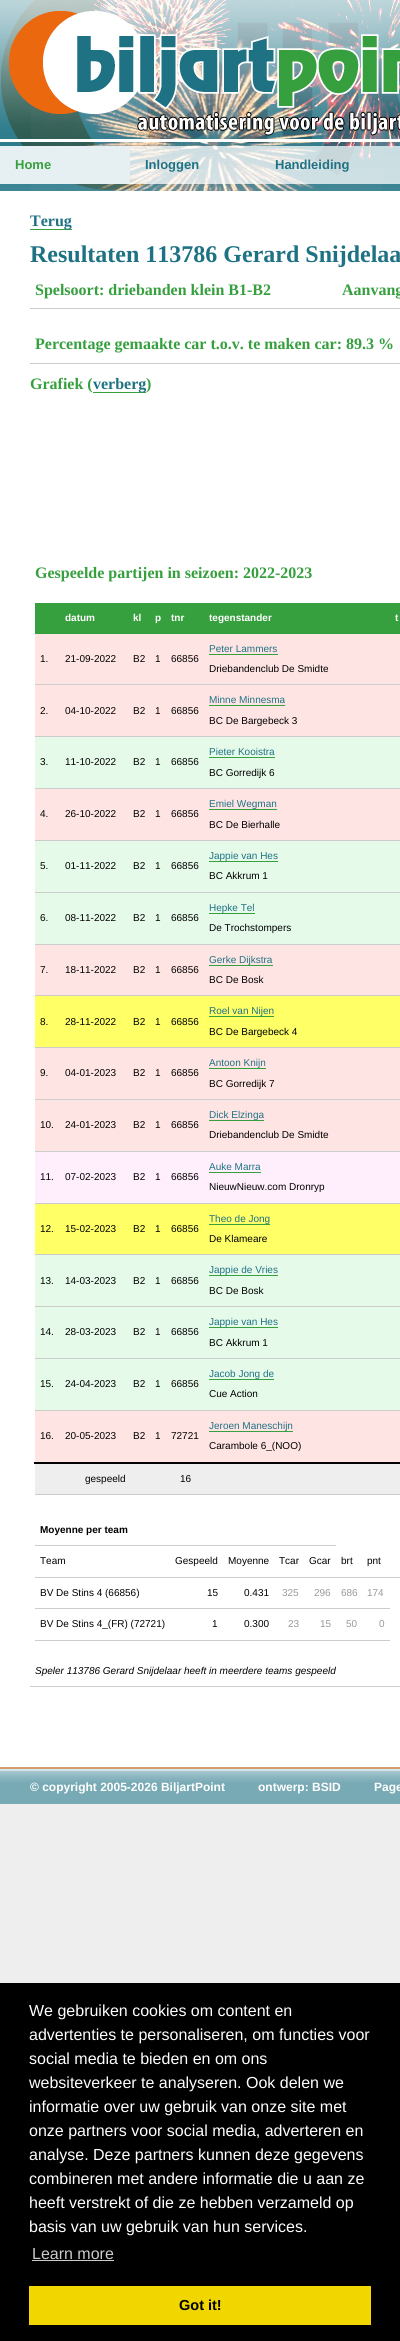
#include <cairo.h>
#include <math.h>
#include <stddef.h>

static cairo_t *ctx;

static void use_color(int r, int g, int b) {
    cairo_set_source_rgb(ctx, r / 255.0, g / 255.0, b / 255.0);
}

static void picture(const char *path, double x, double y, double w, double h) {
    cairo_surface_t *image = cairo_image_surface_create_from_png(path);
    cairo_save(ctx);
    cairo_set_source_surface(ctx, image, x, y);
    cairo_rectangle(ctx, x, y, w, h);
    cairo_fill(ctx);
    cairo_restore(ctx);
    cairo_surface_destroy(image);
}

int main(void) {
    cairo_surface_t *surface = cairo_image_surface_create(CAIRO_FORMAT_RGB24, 400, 2341);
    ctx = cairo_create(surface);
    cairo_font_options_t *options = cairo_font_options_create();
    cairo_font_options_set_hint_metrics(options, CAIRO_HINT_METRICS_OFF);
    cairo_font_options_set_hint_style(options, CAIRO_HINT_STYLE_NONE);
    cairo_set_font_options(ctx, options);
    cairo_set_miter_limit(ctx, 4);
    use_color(238, 238, 238);
    cairo_paint(ctx);
    picture("img1.png", 0, 0, 1, 191);
    picture("img2.png", 1, 0, 399, 191);
    use_color(230, 239, 241);
    cairo_rectangle(ctx, 0, 146, 130, 38);
    cairo_fill(ctx);
    cairo_select_font_face(ctx, "Liberation Sans", CAIRO_FONT_SLANT_NORMAL, CAIRO_FONT_WEIGHT_BOLD);
    cairo_set_font_size(ctx, 13);
    use_color(54, 159, 62);
    cairo_move_to(ctx, 15, 169);
    cairo_show_text(ctx, "Home");
    use_color(30, 114, 131);
    cairo_move_to(ctx, 145, 169);
    cairo_show_text(ctx, "Inloggen");
    cairo_move_to(ctx, 275, 169);
    cairo_show_text(ctx, "Handleiding");
    use_color(255, 255, 255);
    cairo_rectangle(ctx, 0, 191, 400, 1576);
    cairo_fill(ctx);
    use_color(54, 159, 62);
    cairo_rectangle(ctx, 30, 229, 42, 1);
    cairo_fill(ctx);
    cairo_select_font_face(ctx, "Liberation Serif", CAIRO_FONT_SLANT_NORMAL, CAIRO_FONT_WEIGHT_BOLD);
    cairo_set_font_size(ctx, 16);
    use_color(30, 114, 131);
    cairo_move_to(ctx, 30, 226);
    cairo_show_text(ctx, "Terug");
    cairo_set_font_size(ctx, 24);
    cairo_move_to(ctx, 30, 262);
    cairo_show_text(ctx, "Resultaten 113786 Gerard Snijdelaa");
    cairo_set_font_size(ctx, 16);
    use_color(54, 159, 62);
    cairo_move_to(ctx, 35, 295);
    cairo_show_text(ctx, "Spelsoort: driebanden klein B1-B2");
    use_color(204, 204, 204);
    cairo_rectangle(ctx, 30, 308, 370, 1);
    cairo_fill(ctx);
    use_color(54, 159, 62);
    cairo_move_to(ctx, 342, 295);
    cairo_show_text(ctx, "Aanvang");
    use_color(204, 204, 204);
    cairo_rectangle(ctx, 30, 363, 370, 1);
    cairo_fill(ctx);
    use_color(54, 159, 62);
    cairo_move_to(ctx, 35, 349);
    cairo_show_text(ctx, "Percentage gemaakte car t.o.v. te maken car: 89.3 %");
    cairo_move_to(ctx, 30, 389);
    cairo_show_text(ctx, "Grafiek (");
    cairo_rectangle(ctx, 93, 392, 53, 1);
    cairo_fill(ctx);
    use_color(30, 114, 131);
    cairo_move_to(ctx, 93, 389);
    cairo_show_text(ctx, "verberg");
    use_color(54, 159, 62);
    cairo_move_to(ctx, 146, 389);
    cairo_show_text(ctx, ")");
    use_color(204, 204, 204);
    cairo_rectangle(ctx, 30, 1686, 370, 1);
    cairo_fill(ctx);
    use_color(54, 159, 62);
    cairo_move_to(ctx, 35, 578);
    cairo_show_text(ctx, "Gespeelde partijen in seizoen: 2022-2023");
    cairo_rectangle(ctx, 35, 603, 365, 31);
    cairo_fill(ctx);
    cairo_select_font_face(ctx, "Liberation Sans", CAIRO_FONT_SLANT_NORMAL, CAIRO_FONT_WEIGHT_BOLD);
    cairo_set_font_size(ctx, 10);
    use_color(255, 255, 255);
    cairo_move_to(ctx, 65, 621);
    cairo_show_text(ctx, "datum");
    cairo_move_to(ctx, 133, 621);
    cairo_show_text(ctx, "kl");
    cairo_move_to(ctx, 155, 621);
    cairo_show_text(ctx, "p");
    cairo_move_to(ctx, 171, 621);
    cairo_show_text(ctx, "tnr");
    cairo_move_to(ctx, 209, 621);
    cairo_show_text(ctx, "tegenstander");
    cairo_move_to(ctx, 395, 621);
    cairo_show_text(ctx, "t");
    use_color(255, 228, 228);
    cairo_rectangle(ctx, 35, 634, 365, 50);
    cairo_fill(ctx);
    cairo_select_font_face(ctx, "Liberation Sans", CAIRO_FONT_SLANT_NORMAL, CAIRO_FONT_WEIGHT_NORMAL);
    use_color(0, 0, 0);
    cairo_move_to(ctx, 40, 662);
    cairo_show_text(ctx, "1.");
    cairo_move_to(ctx, 65, 662);
    cairo_show_text(ctx, "21-09-2022");
    cairo_move_to(ctx, 133, 662);
    cairo_show_text(ctx, "B2");
    cairo_move_to(ctx, 155, 662);
    cairo_show_text(ctx, "1");
    cairo_move_to(ctx, 171, 662);
    cairo_show_text(ctx, "66856");
    use_color(30, 114, 131);
    cairo_move_to(ctx, 209, 652);
    cairo_show_text(ctx, "Peter Lammers");
    use_color(54, 159, 62);
    cairo_rectangle(ctx, 209, 654, 69, 1);
    cairo_fill(ctx);
    use_color(0, 0, 0);
    cairo_move_to(ctx, 209, 672);
    cairo_show_text(ctx, "Driebandenclub De Smidte");
    use_color(204, 204, 204);
    cairo_rectangle(ctx, 35, 684, 365, 1);
    cairo_fill(ctx);
    use_color(255, 228, 228);
    cairo_rectangle(ctx, 35, 685, 365, 51);
    cairo_fill(ctx);
    use_color(0, 0, 0);
    cairo_move_to(ctx, 40, 714);
    cairo_show_text(ctx, "2.");
    cairo_move_to(ctx, 65, 714);
    cairo_show_text(ctx, "04-10-2022");
    cairo_move_to(ctx, 133, 714);
    cairo_show_text(ctx, "B2");
    cairo_move_to(ctx, 155, 714);
    cairo_show_text(ctx, "1");
    cairo_move_to(ctx, 171, 714);
    cairo_show_text(ctx, "66856");
    use_color(30, 114, 131);
    cairo_move_to(ctx, 209, 703);
    cairo_show_text(ctx, "Minne Minnesma");
    use_color(54, 159, 62);
    cairo_rectangle(ctx, 209, 705, 76, 1);
    cairo_fill(ctx);
    use_color(0, 0, 0);
    cairo_move_to(ctx, 209, 724);
    cairo_show_text(ctx, "BC De Bargebeck 3");
    use_color(204, 204, 204);
    cairo_rectangle(ctx, 35, 736, 365, 1);
    cairo_fill(ctx);
    use_color(230, 250, 234);
    cairo_rectangle(ctx, 35, 737, 365, 51);
    cairo_fill(ctx);
    use_color(0, 0, 0);
    cairo_move_to(ctx, 40, 765);
    cairo_show_text(ctx, "3.");
    cairo_move_to(ctx, 65, 765);
    cairo_show_text(ctx, "11-10-2022");
    cairo_move_to(ctx, 133, 765);
    cairo_show_text(ctx, "B2");
    cairo_move_to(ctx, 155, 765);
    cairo_show_text(ctx, "1");
    cairo_move_to(ctx, 171, 765);
    cairo_show_text(ctx, "66856");
    use_color(30, 114, 131);
    cairo_move_to(ctx, 209, 755);
    cairo_show_text(ctx, "Pieter Kooistra");
    use_color(54, 159, 62);
    cairo_rectangle(ctx, 209, 757, 66, 1);
    cairo_fill(ctx);
    use_color(0, 0, 0);
    cairo_move_to(ctx, 209, 776);
    cairo_show_text(ctx, "BC Gorredijk 6");
    use_color(204, 204, 204);
    cairo_rectangle(ctx, 35, 788, 365, 1);
    cairo_fill(ctx);
    use_color(255, 228, 228);
    cairo_rectangle(ctx, 35, 789, 365, 51);
    cairo_fill(ctx);
    use_color(0, 0, 0);
    cairo_move_to(ctx, 40, 817);
    cairo_show_text(ctx, "4.");
    cairo_move_to(ctx, 65, 817);
    cairo_show_text(ctx, "26-10-2022");
    cairo_move_to(ctx, 133, 817);
    cairo_show_text(ctx, "B2");
    cairo_move_to(ctx, 155, 817);
    cairo_show_text(ctx, "1");
    cairo_move_to(ctx, 171, 817);
    cairo_show_text(ctx, "66856");
    use_color(54, 159, 62);
    cairo_rectangle(ctx, 209, 809, 68, 1);
    cairo_fill(ctx);
    use_color(30, 114, 131);
    cairo_move_to(ctx, 209, 807);
    cairo_show_text(ctx, "Emiel Wegman");
    use_color(0, 0, 0);
    cairo_move_to(ctx, 209, 828);
    cairo_show_text(ctx, "BC De Bierhalle");
    use_color(204, 204, 204);
    cairo_rectangle(ctx, 35, 840, 365, 1);
    cairo_fill(ctx);
    use_color(230, 250, 234);
    cairo_rectangle(ctx, 35, 841, 365, 51);
    cairo_fill(ctx);
    use_color(0, 0, 0);
    cairo_move_to(ctx, 40, 869);
    cairo_show_text(ctx, "5.");
    cairo_move_to(ctx, 65, 869);
    cairo_show_text(ctx, "01-11-2022");
    cairo_move_to(ctx, 133, 869);
    cairo_show_text(ctx, "B2");
    cairo_move_to(ctx, 155, 869);
    cairo_show_text(ctx, "1");
    cairo_move_to(ctx, 171, 869);
    cairo_show_text(ctx, "66856");
    use_color(54, 159, 62);
    cairo_rectangle(ctx, 209, 861, 69, 1);
    cairo_fill(ctx);
    use_color(30, 114, 131);
    cairo_move_to(ctx, 209, 859);
    cairo_show_text(ctx, "Jappie van Hes");
    use_color(0, 0, 0);
    cairo_move_to(ctx, 209, 879);
    cairo_show_text(ctx, "BC Akkrum 1");
    use_color(204, 204, 204);
    cairo_rectangle(ctx, 35, 892, 365, 1);
    cairo_fill(ctx);
    use_color(230, 250, 234);
    cairo_rectangle(ctx, 35, 893, 365, 51);
    cairo_fill(ctx);
    use_color(0, 0, 0);
    cairo_move_to(ctx, 40, 921);
    cairo_show_text(ctx, "6.");
    cairo_move_to(ctx, 65, 921);
    cairo_show_text(ctx, "08-11-2022");
    cairo_move_to(ctx, 133, 921);
    cairo_show_text(ctx, "B2");
    cairo_move_to(ctx, 155, 921);
    cairo_show_text(ctx, "1");
    cairo_move_to(ctx, 171, 921);
    cairo_show_text(ctx, "66856");
    use_color(54, 159, 62);
    cairo_rectangle(ctx, 209, 913, 46, 1);
    cairo_fill(ctx);
    use_color(30, 114, 131);
    cairo_move_to(ctx, 209, 911);
    cairo_show_text(ctx, "Hepke Tel");
    use_color(0, 0, 0);
    cairo_move_to(ctx, 209, 931);
    cairo_show_text(ctx, "De Trochstompers");
    use_color(204, 204, 204);
    cairo_rectangle(ctx, 35, 944, 365, 1);
    cairo_fill(ctx);
    use_color(255, 228, 228);
    cairo_rectangle(ctx, 35, 945, 365, 50);
    cairo_fill(ctx);
    use_color(0, 0, 0);
    cairo_move_to(ctx, 40, 973);
    cairo_show_text(ctx, "7.");
    cairo_move_to(ctx, 65, 973);
    cairo_show_text(ctx, "18-11-2022");
    cairo_move_to(ctx, 133, 973);
    cairo_show_text(ctx, "B2");
    cairo_move_to(ctx, 155, 973);
    cairo_show_text(ctx, "1");
    cairo_move_to(ctx, 171, 973);
    cairo_show_text(ctx, "66856");
    use_color(54, 159, 62);
    cairo_rectangle(ctx, 209, 965, 64, 1);
    cairo_fill(ctx);
    use_color(30, 114, 131);
    cairo_move_to(ctx, 209, 963);
    cairo_show_text(ctx, "Gerke Dijkstra");
    use_color(0, 0, 0);
    cairo_move_to(ctx, 209, 983);
    cairo_show_text(ctx, "BC De Bosk");
    use_color(204, 204, 204);
    cairo_rectangle(ctx, 35, 995, 365, 1);
    cairo_fill(ctx);
    use_color(255, 255, 102);
    cairo_rectangle(ctx, 35, 996, 365, 51);
    cairo_fill(ctx);
    use_color(0, 0, 0);
    cairo_move_to(ctx, 40, 1025);
    cairo_show_text(ctx, "8.");
    cairo_move_to(ctx, 65, 1025);
    cairo_show_text(ctx, "28-11-2022");
    cairo_move_to(ctx, 133, 1025);
    cairo_show_text(ctx, "B2");
    cairo_move_to(ctx, 155, 1025);
    cairo_show_text(ctx, "1");
    cairo_move_to(ctx, 171, 1025);
    cairo_show_text(ctx, "66856");
    use_color(54, 159, 62);
    cairo_rectangle(ctx, 209, 1016, 65, 1);
    cairo_fill(ctx);
    use_color(30, 114, 131);
    cairo_move_to(ctx, 209, 1014);
    cairo_show_text(ctx, "Roel van Nijen");
    use_color(0, 0, 0);
    cairo_move_to(ctx, 209, 1035);
    cairo_show_text(ctx, "BC De Bargebeck 4");
    use_color(204, 204, 204);
    cairo_rectangle(ctx, 35, 1047, 365, 1);
    cairo_fill(ctx);
    use_color(255, 228, 228);
    cairo_rectangle(ctx, 35, 1048, 365, 51);
    cairo_fill(ctx);
    use_color(0, 0, 0);
    cairo_move_to(ctx, 40, 1076);
    cairo_show_text(ctx, "9.");
    cairo_move_to(ctx, 65, 1076);
    cairo_show_text(ctx, "04-01-2023");
    cairo_move_to(ctx, 133, 1076);
    cairo_show_text(ctx, "B2");
    cairo_move_to(ctx, 155, 1076);
    cairo_show_text(ctx, "1");
    cairo_move_to(ctx, 171, 1076);
    cairo_show_text(ctx, "66856");
    use_color(54, 159, 62);
    cairo_rectangle(ctx, 209, 1068, 57, 1);
    cairo_fill(ctx);
    use_color(30, 114, 131);
    cairo_move_to(ctx, 209, 1066);
    cairo_show_text(ctx, "Antoon Knijn");
    use_color(0, 0, 0);
    cairo_move_to(ctx, 209, 1087);
    cairo_show_text(ctx, "BC Gorredijk 7");
    use_color(204, 204, 204);
    cairo_rectangle(ctx, 35, 1099, 365, 1);
    cairo_fill(ctx);
    use_color(255, 228, 228);
    cairo_rectangle(ctx, 35, 1100, 365, 51);
    cairo_fill(ctx);
    use_color(0, 0, 0);
    cairo_move_to(ctx, 40, 1128);
    cairo_show_text(ctx, "10.");
    cairo_move_to(ctx, 65, 1128);
    cairo_show_text(ctx, "24-01-2023");
    cairo_move_to(ctx, 133, 1128);
    cairo_show_text(ctx, "B2");
    cairo_move_to(ctx, 155, 1128);
    cairo_show_text(ctx, "1");
    cairo_move_to(ctx, 171, 1128);
    cairo_show_text(ctx, "66856");
    use_color(54, 159, 62);
    cairo_rectangle(ctx, 209, 1120, 55, 1);
    cairo_fill(ctx);
    use_color(30, 114, 131);
    cairo_move_to(ctx, 209, 1118);
    cairo_show_text(ctx, "Dick Elzinga");
    use_color(0, 0, 0);
    cairo_move_to(ctx, 209, 1138);
    cairo_show_text(ctx, "Driebandenclub De Smidte");
    use_color(204, 204, 204);
    cairo_rectangle(ctx, 35, 1151, 365, 1);
    cairo_fill(ctx);
    use_color(255, 239, 252);
    cairo_rectangle(ctx, 35, 1152, 365, 51);
    cairo_fill(ctx);
    use_color(0, 0, 0);
    cairo_move_to(ctx, 40, 1180);
    cairo_show_text(ctx, "11.");
    cairo_move_to(ctx, 65, 1180);
    cairo_show_text(ctx, "07-02-2023");
    cairo_move_to(ctx, 133, 1180);
    cairo_show_text(ctx, "B2");
    cairo_move_to(ctx, 155, 1180);
    cairo_show_text(ctx, "1");
    cairo_move_to(ctx, 171, 1180);
    cairo_show_text(ctx, "66856");
    use_color(30, 114, 131);
    cairo_move_to(ctx, 209, 1170);
    cairo_show_text(ctx, "Auke Marra");
    use_color(54, 159, 62);
    cairo_rectangle(ctx, 209, 1172, 52, 1);
    cairo_fill(ctx);
    use_color(0, 0, 0);
    cairo_move_to(ctx, 209, 1190);
    cairo_show_text(ctx, "NieuwNieuw.com Dronryp");
    use_color(204, 204, 204);
    cairo_rectangle(ctx, 35, 1203, 365, 1);
    cairo_fill(ctx);
    use_color(255, 255, 102);
    cairo_rectangle(ctx, 35, 1204, 365, 50);
    cairo_fill(ctx);
    use_color(0, 0, 0);
    cairo_move_to(ctx, 40, 1232);
    cairo_show_text(ctx, "12.");
    cairo_move_to(ctx, 65, 1232);
    cairo_show_text(ctx, "15-02-2023");
    cairo_move_to(ctx, 133, 1232);
    cairo_show_text(ctx, "B2");
    cairo_move_to(ctx, 155, 1232);
    cairo_show_text(ctx, "1");
    cairo_move_to(ctx, 171, 1232);
    cairo_show_text(ctx, "66856");
    use_color(54, 159, 62);
    cairo_rectangle(ctx, 209, 1224, 61, 1);
    cairo_fill(ctx);
    use_color(30, 114, 131);
    cairo_move_to(ctx, 209, 1222);
    cairo_show_text(ctx, "Theo de Jong");
    use_color(0, 0, 0);
    cairo_move_to(ctx, 209, 1242);
    cairo_show_text(ctx, "De Klameare");
    use_color(204, 204, 204);
    cairo_rectangle(ctx, 35, 1254, 365, 1);
    cairo_fill(ctx);
    use_color(230, 250, 234);
    cairo_rectangle(ctx, 35, 1255, 365, 51);
    cairo_fill(ctx);
    use_color(0, 0, 0);
    cairo_move_to(ctx, 40, 1284);
    cairo_show_text(ctx, "13.");
    cairo_move_to(ctx, 65, 1284);
    cairo_show_text(ctx, "14-03-2023");
    cairo_move_to(ctx, 133, 1284);
    cairo_show_text(ctx, "B2");
    cairo_move_to(ctx, 155, 1284);
    cairo_show_text(ctx, "1");
    cairo_move_to(ctx, 171, 1284);
    cairo_show_text(ctx, "66856");
    use_color(54, 159, 62);
    cairo_rectangle(ctx, 209, 1275, 69, 1);
    cairo_fill(ctx);
    use_color(30, 114, 131);
    cairo_move_to(ctx, 209, 1273);
    cairo_show_text(ctx, "Jappie de Vries");
    use_color(0, 0, 0);
    cairo_move_to(ctx, 209, 1294);
    cairo_show_text(ctx, "BC De Bosk");
    use_color(204, 204, 204);
    cairo_rectangle(ctx, 35, 1306, 365, 1);
    cairo_fill(ctx);
    use_color(230, 250, 234);
    cairo_rectangle(ctx, 35, 1307, 365, 51);
    cairo_fill(ctx);
    use_color(0, 0, 0);
    cairo_move_to(ctx, 40, 1335);
    cairo_show_text(ctx, "14.");
    cairo_move_to(ctx, 65, 1335);
    cairo_show_text(ctx, "28-03-2023");
    cairo_move_to(ctx, 133, 1335);
    cairo_show_text(ctx, "B2");
    cairo_move_to(ctx, 155, 1335);
    cairo_show_text(ctx, "1");
    cairo_move_to(ctx, 171, 1335);
    cairo_show_text(ctx, "66856");
    use_color(54, 159, 62);
    cairo_rectangle(ctx, 209, 1327, 69, 1);
    cairo_fill(ctx);
    use_color(30, 114, 131);
    cairo_move_to(ctx, 209, 1325);
    cairo_show_text(ctx, "Jappie van Hes");
    use_color(0, 0, 0);
    cairo_move_to(ctx, 209, 1346);
    cairo_show_text(ctx, "BC Akkrum 1");
    use_color(204, 204, 204);
    cairo_rectangle(ctx, 35, 1358, 365, 1);
    cairo_fill(ctx);
    use_color(230, 250, 234);
    cairo_rectangle(ctx, 35, 1359, 365, 51);
    cairo_fill(ctx);
    use_color(0, 0, 0);
    cairo_move_to(ctx, 40, 1387);
    cairo_show_text(ctx, "15.");
    cairo_move_to(ctx, 65, 1387);
    cairo_show_text(ctx, "24-04-2023");
    cairo_move_to(ctx, 133, 1387);
    cairo_show_text(ctx, "B2");
    cairo_move_to(ctx, 155, 1387);
    cairo_show_text(ctx, "1");
    cairo_move_to(ctx, 171, 1387);
    cairo_show_text(ctx, "66856");
    use_color(54, 159, 62);
    cairo_rectangle(ctx, 209, 1379, 65, 1);
    cairo_fill(ctx);
    use_color(30, 114, 131);
    cairo_move_to(ctx, 209, 1377);
    cairo_show_text(ctx, "Jacob Jong de");
    use_color(0, 0, 0);
    cairo_move_to(ctx, 209, 1397);
    cairo_show_text(ctx, "Cue Action");
    use_color(204, 204, 204);
    cairo_rectangle(ctx, 35, 1410, 365, 1);
    cairo_fill(ctx);
    use_color(255, 228, 228);
    cairo_rectangle(ctx, 35, 1411, 365, 51);
    cairo_fill(ctx);
    use_color(0, 0, 0);
    cairo_move_to(ctx, 40, 1439);
    cairo_show_text(ctx, "16.");
    cairo_move_to(ctx, 65, 1439);
    cairo_show_text(ctx, "20-05-2023");
    cairo_move_to(ctx, 133, 1439);
    cairo_show_text(ctx, "B2");
    cairo_move_to(ctx, 155, 1439);
    cairo_show_text(ctx, "1");
    cairo_move_to(ctx, 171, 1439);
    cairo_show_text(ctx, "72721");
    use_color(54, 159, 62);
    cairo_rectangle(ctx, 209, 1431, 84, 1);
    cairo_fill(ctx);
    use_color(30, 114, 131);
    cairo_move_to(ctx, 209, 1429);
    cairo_show_text(ctx, "Jeroen Maneschijn");
    use_color(0, 0, 0);
    cairo_move_to(ctx, 209, 1449);
    cairo_show_text(ctx, "Carambole 6_(NOO)");
    use_color(204, 204, 204);
    cairo_rectangle(ctx, 35, 1494, 365, 1);
    cairo_fill(ctx);
    use_color(0, 0, 0);
    cairo_rectangle(ctx, 34, 1462, 366, 2);
    cairo_fill(ctx);
    use_color(238, 238, 238);
    cairo_rectangle(ctx, 35, 1464, 365, 30);
    cairo_fill(ctx);
    use_color(0, 0, 0);
    cairo_move_to(ctx, 85, 1482);
    cairo_show_text(ctx, "gespeeld");
    cairo_move_to(ctx, 180, 1482);
    cairo_show_text(ctx, "16");
    use_color(204, 204, 204);
    cairo_rectangle(ctx, 35, 1545, 301, 1);
    cairo_fill(ctx);
    cairo_select_font_face(ctx, "Liberation Sans", CAIRO_FONT_SLANT_NORMAL, CAIRO_FONT_WEIGHT_BOLD);
    use_color(0, 0, 0);
    cairo_move_to(ctx, 40, 1533);
    cairo_show_text(ctx, "Moyenne per team");
    cairo_select_font_face(ctx, "Liberation Sans", CAIRO_FONT_SLANT_NORMAL, CAIRO_FONT_WEIGHT_NORMAL);
    cairo_move_to(ctx, 40, 1564);
    cairo_show_text(ctx, "Team");
    cairo_move_to(ctx, 175, 1564);
    cairo_show_text(ctx, "Gespeeld");
    cairo_move_to(ctx, 228, 1564);
    cairo_show_text(ctx, "Moyenne");
    cairo_move_to(ctx, 279, 1564);
    cairo_show_text(ctx, "Tcar");
    cairo_move_to(ctx, 309, 1564);
    cairo_show_text(ctx, "Gcar");
    cairo_move_to(ctx, 341, 1564);
    cairo_show_text(ctx, "brt");
    cairo_move_to(ctx, 367, 1564);
    cairo_show_text(ctx, "pnt");
    use_color(204, 204, 204);
    cairo_rectangle(ctx, 35, 1577, 365, 1);
    cairo_fill(ctx);
    use_color(0, 0, 0);
    cairo_move_to(ctx, 40, 1596);
    cairo_show_text(ctx, "BV De Stins 4 (66856)");
    cairo_move_to(ctx, 207, 1596);
    cairo_show_text(ctx, "15");
    cairo_move_to(ctx, 244, 1596);
    cairo_show_text(ctx, "0.431");
    use_color(153, 153, 153);
    cairo_move_to(ctx, 282, 1596);
    cairo_show_text(ctx, "325");
    cairo_move_to(ctx, 314, 1596);
    cairo_show_text(ctx, "296");
    cairo_move_to(ctx, 341, 1596);
    cairo_show_text(ctx, "686");
    use_color(204, 204, 204);
    cairo_rectangle(ctx, 35, 1608, 355, 1);
    cairo_fill(ctx);
    use_color(153, 153, 153);
    cairo_move_to(ctx, 367, 1596);
    cairo_show_text(ctx, "174");
    use_color(0, 0, 0);
    cairo_move_to(ctx, 40, 1627);
    cairo_show_text(ctx, "BV De Stins 4_(FR) (72721)");
    cairo_move_to(ctx, 212, 1627);
    cairo_show_text(ctx, "1");
    cairo_move_to(ctx, 244, 1627);
    cairo_show_text(ctx, "0.300");
    use_color(153, 153, 153);
    cairo_move_to(ctx, 288, 1627);
    cairo_show_text(ctx, "23");
    cairo_move_to(ctx, 320, 1627);
    cairo_show_text(ctx, "15");
    cairo_move_to(ctx, 346, 1627);
    cairo_show_text(ctx, "50");
    use_color(204, 204, 204);
    cairo_rectangle(ctx, 35, 1640, 355, 1);
    cairo_fill(ctx);
    use_color(153, 153, 153);
    cairo_move_to(ctx, 379, 1627);
    cairo_show_text(ctx, "0");
    cairo_select_font_face(ctx, "Liberation Sans", CAIRO_FONT_SLANT_ITALIC, CAIRO_FONT_WEIGHT_NORMAL);
    use_color(0, 0, 0);
    cairo_move_to(ctx, 35, 1674);
    cairo_show_text(ctx, "Speler 113786 Gerard Snijdelaar heeft in meerdere teams gespeeld");
    picture("img3.png", 0, 1767, 400, 37);
    cairo_select_font_face(ctx, "Liberation Sans", CAIRO_FONT_SLANT_NORMAL, CAIRO_FONT_WEIGHT_BOLD);
    cairo_set_font_size(ctx, 12);
    use_color(255, 255, 255);
    cairo_move_to(ctx, 30, 1791);
    cairo_show_text(ctx, "© copyright 2005-2026 BiljartPoint");
    cairo_move_to(ctx, 258, 1791);
    cairo_show_text(ctx, "ontwerp: BSID");
    cairo_move_to(ctx, 374, 1791);
    cairo_show_text(ctx, "Page");
    use_color(0, 0, 0);
    cairo_rectangle(ctx, 0, 1983, 400, 358);
    cairo_fill(ctx);
    cairo_select_font_face(ctx, "Liberation Sans", CAIRO_FONT_SLANT_NORMAL, CAIRO_FONT_WEIGHT_NORMAL);
    cairo_set_font_size(ctx, 16);
    use_color(255, 255, 255);
    cairo_move_to(ctx, 29, 2016);
    cairo_show_text(ctx, "We gebruiken cookies om content en");
    cairo_move_to(ctx, 29, 2040);
    cairo_show_text(ctx, "advertenties te personaliseren, om functies voor");
    cairo_move_to(ctx, 29, 2064);
    cairo_show_text(ctx, "social media te bieden en om ons");
    cairo_move_to(ctx, 29, 2088);
    cairo_show_text(ctx, "websiteverkeer te analyseren. Ook delen we");
    cairo_move_to(ctx, 29, 2112);
    cairo_show_text(ctx, "informatie over uw gebruik van onze site met");
    cairo_move_to(ctx, 29, 2136);
    cairo_show_text(ctx, "onze partners voor social media, adverteren en");
    cairo_move_to(ctx, 29, 2160);
    cairo_show_text(ctx, "analyse. Deze partners kunnen deze gegevens");
    cairo_move_to(ctx, 29, 2184);
    cairo_show_text(ctx, "combineren met andere informatie die u aan ze");
    cairo_move_to(ctx, 29, 2208);
    cairo_show_text(ctx, "heeft verstrekt of die ze hebben verzameld op");
    cairo_move_to(ctx, 29, 2232);
    cairo_show_text(ctx, "basis van uw gebruik van hun services.");
    use_color(204, 204, 204);
    cairo_move_to(ctx, 32, 2259);
    cairo_show_text(ctx, "Learn more");
    cairo_rectangle(ctx, 32, 2260, 82, 1);
    cairo_fill(ctx);
    use_color(241, 214, 0);
    cairo_rectangle(ctx, 29, 2286, 342, 39);
    cairo_fill(ctx);
    cairo_select_font_face(ctx, "Liberation Sans", CAIRO_FONT_SLANT_NORMAL, CAIRO_FONT_WEIGHT_BOLD);
    cairo_set_font_size(ctx, 14.5);
    use_color(0, 0, 0);
    cairo_move_to(ctx, 179, 2310);
    cairo_show_text(ctx, "Got it!");
    cairo_surface_write_to_png(surface, "result.png");
    cairo_font_options_destroy(options);
    cairo_destroy(ctx);
    cairo_surface_destroy(surface);
    return 0;
}
